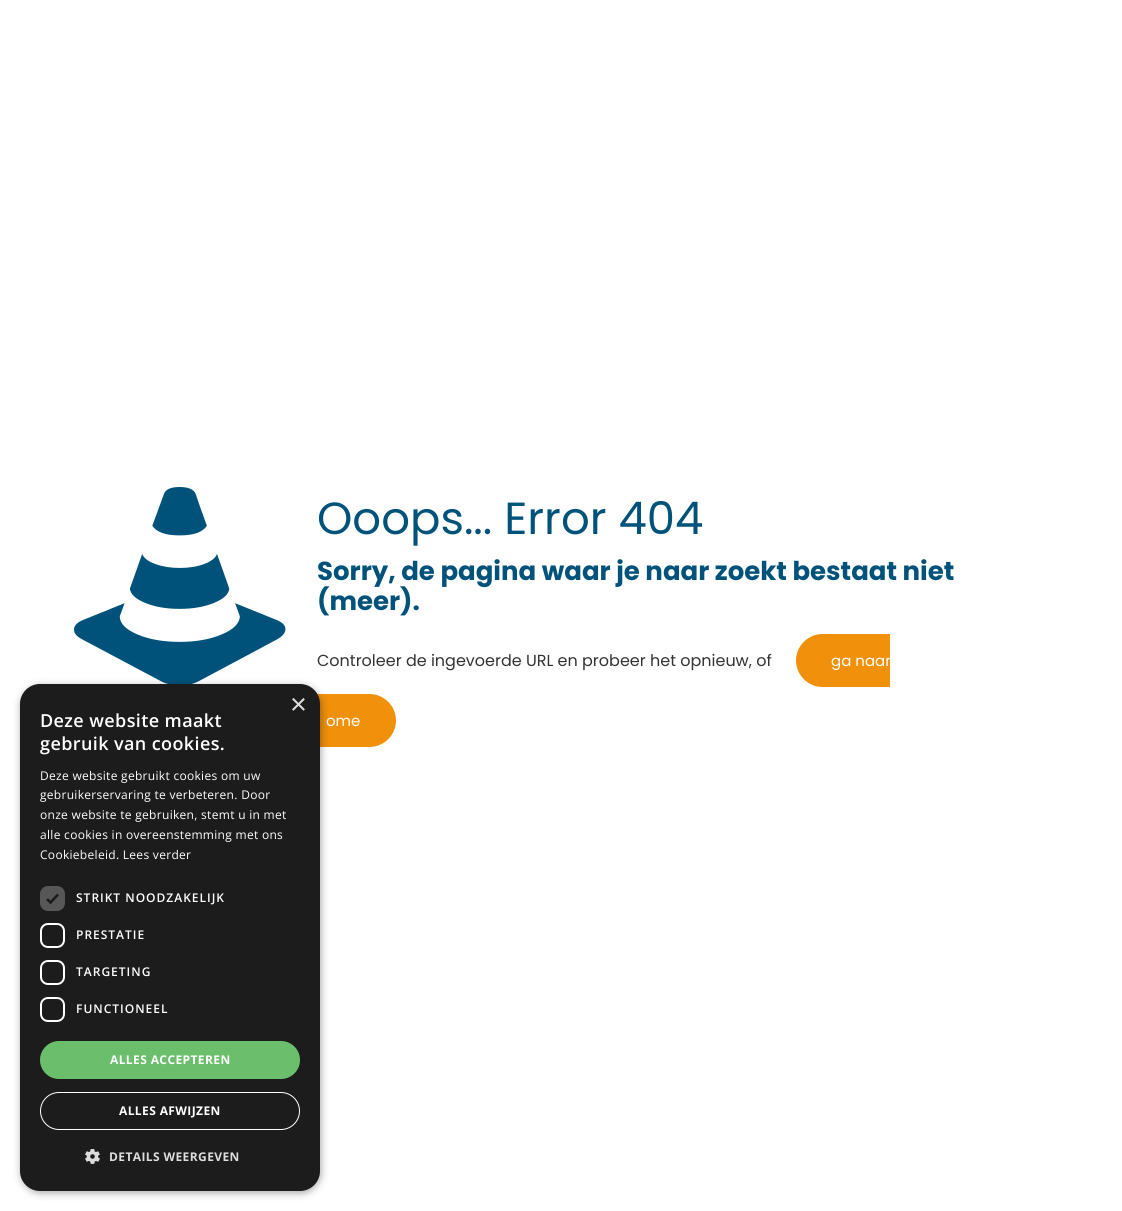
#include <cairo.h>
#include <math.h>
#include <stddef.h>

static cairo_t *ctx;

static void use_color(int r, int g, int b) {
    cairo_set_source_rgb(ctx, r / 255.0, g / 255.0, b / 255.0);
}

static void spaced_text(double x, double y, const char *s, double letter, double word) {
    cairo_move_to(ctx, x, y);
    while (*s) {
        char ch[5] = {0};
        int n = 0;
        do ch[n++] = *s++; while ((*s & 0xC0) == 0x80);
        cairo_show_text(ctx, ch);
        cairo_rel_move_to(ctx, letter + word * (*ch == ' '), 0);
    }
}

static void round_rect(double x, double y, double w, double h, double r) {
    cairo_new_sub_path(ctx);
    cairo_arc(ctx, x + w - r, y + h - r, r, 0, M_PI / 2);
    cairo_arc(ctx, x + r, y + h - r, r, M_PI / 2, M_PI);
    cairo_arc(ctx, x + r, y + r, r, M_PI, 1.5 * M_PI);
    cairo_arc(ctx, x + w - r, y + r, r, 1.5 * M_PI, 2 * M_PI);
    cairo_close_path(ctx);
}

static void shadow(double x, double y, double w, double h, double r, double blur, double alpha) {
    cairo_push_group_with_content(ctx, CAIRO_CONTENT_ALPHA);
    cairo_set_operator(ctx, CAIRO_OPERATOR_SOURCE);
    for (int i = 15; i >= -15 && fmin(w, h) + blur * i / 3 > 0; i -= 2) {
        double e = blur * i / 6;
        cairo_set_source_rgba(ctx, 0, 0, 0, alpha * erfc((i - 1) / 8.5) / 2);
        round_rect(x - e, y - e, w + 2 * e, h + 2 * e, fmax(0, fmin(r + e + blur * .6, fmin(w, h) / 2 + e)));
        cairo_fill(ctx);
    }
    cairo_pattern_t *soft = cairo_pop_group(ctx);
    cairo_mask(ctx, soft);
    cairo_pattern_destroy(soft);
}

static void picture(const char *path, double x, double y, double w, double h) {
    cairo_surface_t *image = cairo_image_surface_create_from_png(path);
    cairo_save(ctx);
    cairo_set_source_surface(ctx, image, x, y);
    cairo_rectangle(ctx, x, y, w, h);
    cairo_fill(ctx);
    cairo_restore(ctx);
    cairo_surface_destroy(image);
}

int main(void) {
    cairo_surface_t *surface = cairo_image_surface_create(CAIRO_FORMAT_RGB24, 1122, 1211);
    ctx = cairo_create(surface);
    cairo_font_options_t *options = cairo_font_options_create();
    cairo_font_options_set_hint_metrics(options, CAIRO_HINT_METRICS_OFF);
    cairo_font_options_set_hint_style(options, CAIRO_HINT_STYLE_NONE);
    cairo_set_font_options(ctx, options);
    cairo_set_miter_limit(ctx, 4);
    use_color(255, 255, 255);
    cairo_paint(ctx);
    picture("img1.png", 74, 487, 212, 197);
    cairo_select_font_face(ctx, "Poppins", CAIRO_FONT_SLANT_NORMAL, CAIRO_FONT_WEIGHT_NORMAL);
    cairo_set_font_size(ctx, 45);
    use_color(0, 82, 122);
    cairo_move_to(ctx, 317, 534);
    cairo_show_text(ctx, "Ooops... Error 404");
    cairo_select_font_face(ctx, "Poppins", CAIRO_FONT_SLANT_NORMAL, CAIRO_FONT_WEIGHT_BOLD);
    cairo_set_font_size(ctx, 26);
    cairo_move_to(ctx, 317, 580);
    cairo_show_text(ctx, "Sorry, de pagina waar je naar zoekt bestaat niet");
    cairo_move_to(ctx, 317, 610);
    cairo_show_text(ctx, "(meer).");
    cairo_select_font_face(ctx, "Poppins", CAIRO_FONT_SLANT_NORMAL, CAIRO_FONT_WEIGHT_NORMAL);
    cairo_set_font_size(ctx, 16);
    use_color(51, 51, 51);
    cairo_move_to(ctx, 317, 666);
    cairo_show_text(ctx, "Controleer de ingevoerde URL en probeer het opnieuw, of");
    use_color(241, 144, 10);
    cairo_new_path(ctx);
    cairo_move_to(ctx, 822.5, 634);
    cairo_line_to(ctx, 890, 634);
    cairo_line_to(ctx, 890, 687);
    cairo_line_to(ctx, 822.5, 687);
    cairo_curve_to(ctx, 808, 687, 796, 675, 796, 660.5);
    cairo_curve_to(ctx, 796, 646, 808, 634, 822.5, 634);
    cairo_close_path(ctx);
    cairo_fill(ctx);
    cairo_set_font_size(ctx, 15);
    use_color(255, 255, 255);
    cairo_move_to(ctx, 831, 666);
    cairo_show_text(ctx, "ga naar");
    use_color(241, 144, 10);
    cairo_new_path(ctx);
    cairo_move_to(ctx, 317, 694);
    cairo_line_to(ctx, 369.5, 694);
    cairo_curve_to(ctx, 384, 694, 396, 706, 396, 720.5);
    cairo_curve_to(ctx, 396, 735, 384, 747, 369.5, 747);
    cairo_line_to(ctx, 317, 747);
    cairo_close_path(ctx);
    cairo_fill(ctx);
    use_color(255, 255, 255);
    cairo_move_to(ctx, 326, 726);
    cairo_show_text(ctx, "ome");
    use_color(0, 0, 0);
    shadow(21, 686, 300, 507, 20, 4, 0.35);
    use_color(28, 28, 28);
    round_rect(20, 684, 300, 507, 20);
    cairo_fill(ctx);
    cairo_select_font_face(ctx, "Liberation Sans", CAIRO_FONT_SLANT_NORMAL, CAIRO_FONT_WEIGHT_NORMAL);
    cairo_set_font_size(ctx, 29);
    use_color(221, 221, 221);
    cairo_move_to(ctx, 290, 714);
    cairo_show_text(ctx, "×");
    cairo_select_font_face(ctx, "Open Sans SemiBold", CAIRO_FONT_SLANT_NORMAL, CAIRO_FONT_WEIGHT_NORMAL);
    cairo_set_font_size(ctx, 18);
    use_color(255, 255, 255);
    spaced_text(40, 727, "Deze website maakt", 0.4, 0);
    spaced_text(40, 750, "gebruik van cookies.", 0.4, 0);
    cairo_select_font_face(ctx, "Open Sans", CAIRO_FONT_SLANT_NORMAL, CAIRO_FONT_WEIGHT_NORMAL);
    cairo_set_font_size(ctx, 12);
    spaced_text(40, 780, "Deze website gebruikt cookies om uw", 0.3, 0);
    spaced_text(40, 799, "gebruikerservaring te verbeteren. Door", 0.3, 0);
    spaced_text(40, 819, "onze website te gebruiken, stemt u in met", 0.3, 0);
    spaced_text(40, 839, "alle cookies in overeenstemming met ons", 0.3, 0);
    spaced_text(40, 859, "Cookiebeleid. Lees verder", 0.3, 0);
    use_color(87, 87, 87);
    round_rect(40, 886, 25, 25, 8);
    cairo_fill(ctx);
    cairo_new_path(ctx);
    cairo_move_to(ctx, 47, 899);
    cairo_line_to(ctx, 50.5, 902.5);
    cairo_line_to(ctx, 58, 894.5);
    use_color(28, 28, 28);
    cairo_set_line_width(ctx, 2.6);
    cairo_stroke(ctx);
    cairo_select_font_face(ctx, "Open Sans SemiBold", CAIRO_FONT_SLANT_NORMAL, CAIRO_FONT_WEIGHT_NORMAL);
    use_color(255, 255, 255);
    spaced_text(76, 902, "STRIKT NOODZAKELIJK", 1, 0);
    round_rect(41, 924, 23, 23, 7);
    cairo_set_line_width(ctx, 2);
    cairo_stroke(ctx);
    spaced_text(76, 939, "PRESTATIE", 1, 0);
    round_rect(41, 961, 23, 23, 7);
    cairo_stroke(ctx);
    spaced_text(76, 976, "TARGETING", 1, 0);
    round_rect(41, 998, 23, 23, 7);
    cairo_stroke(ctx);
    spaced_text(76, 1013, "FUNCTIONEEL", 1, 0);
    use_color(107, 190, 107);
    round_rect(40, 1041, 260, 38, 19);
    cairo_fill(ctx);
    cairo_select_font_face(ctx, "Open Sans", CAIRO_FONT_SLANT_NORMAL, CAIRO_FONT_WEIGHT_BOLD);
    use_color(255, 255, 255);
    spaced_text(110, 1064, "ALLES ACCEPTEREN", 0.4, 0);
    round_rect(40.5, 1092.5, 259, 37, 18.5);
    cairo_set_line_width(ctx, 1);
    cairo_stroke(ctx);
    spaced_text(119, 1115, "ALLES AFWIJZEN", 0.4, 0);
    picture("img2.png", 85, 1149, 15, 15);
    use_color(221, 221, 221);
    spaced_text(109, 1161, "DETAILS WEERGEVEN", 0.4, 0);
    cairo_surface_write_to_png(surface, "result.png");
    cairo_font_options_destroy(options);
    cairo_destroy(ctx);
    cairo_surface_destroy(surface);
    return 0;
}
